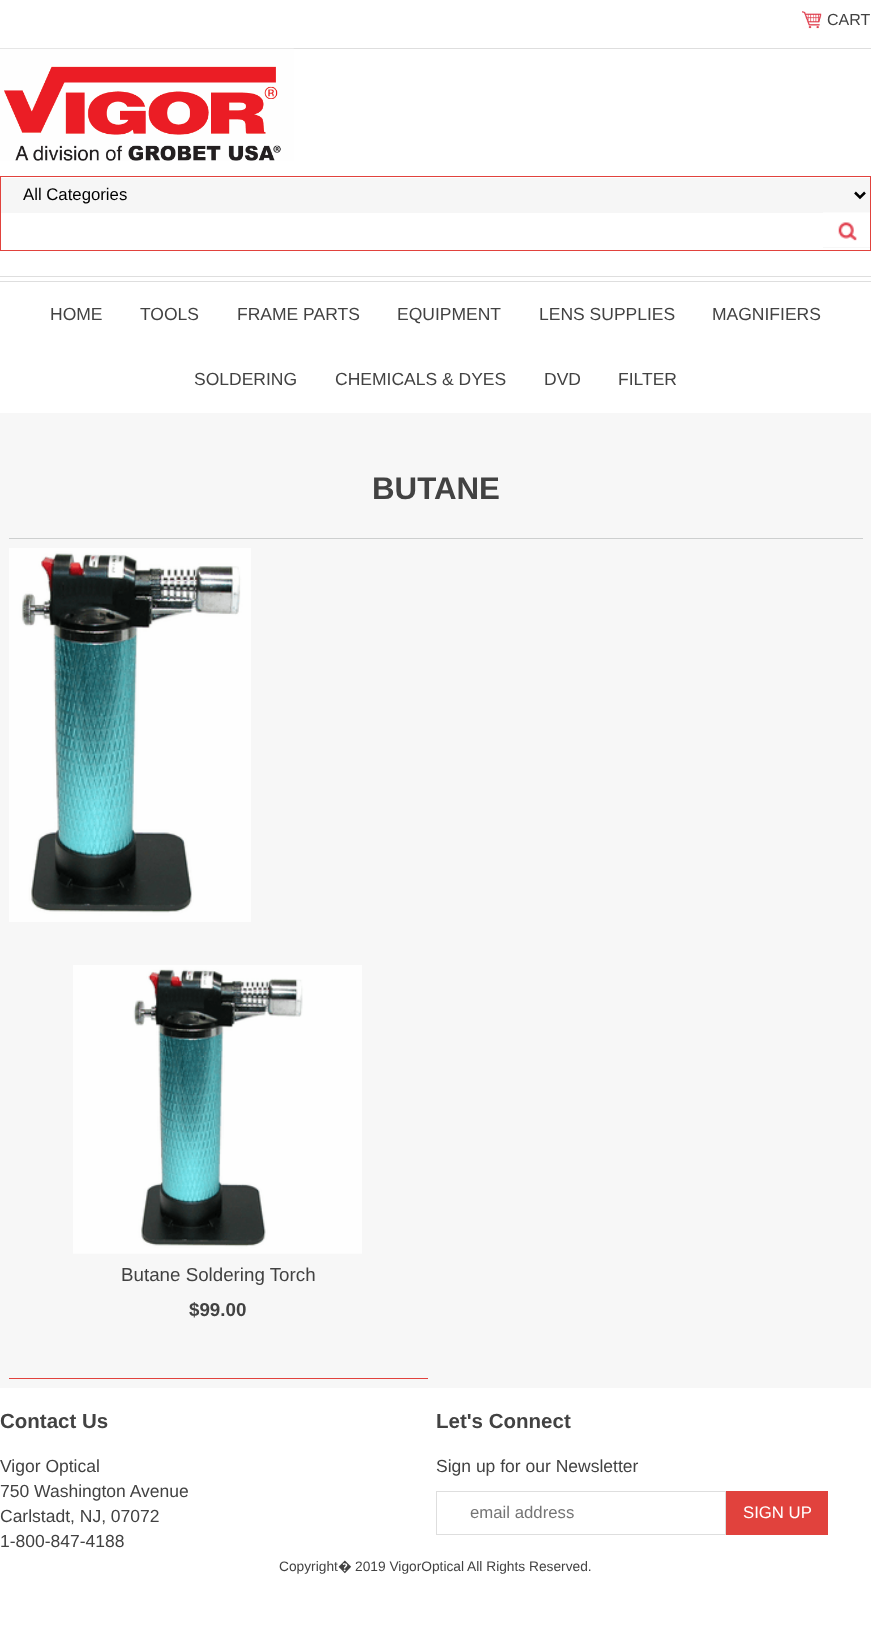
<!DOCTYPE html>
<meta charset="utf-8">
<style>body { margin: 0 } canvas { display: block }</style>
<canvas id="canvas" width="871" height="1632"></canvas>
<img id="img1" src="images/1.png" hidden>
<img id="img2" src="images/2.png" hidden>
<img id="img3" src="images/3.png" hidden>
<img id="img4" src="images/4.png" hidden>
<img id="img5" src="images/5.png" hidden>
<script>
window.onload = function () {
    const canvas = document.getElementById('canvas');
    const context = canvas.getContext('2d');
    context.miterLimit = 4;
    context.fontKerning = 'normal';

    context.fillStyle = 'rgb(255, 255, 255)';
    context.fillRect(0, 0, 871, 1632);
    context.drawImage(document.getElementById('img1'), 802, 11, 20, 18);
    context.fillStyle = 'rgb(222, 222, 222)';
    context.fillRect(0, 48, 871, 1);
    context.fillRect(0, 276, 871, 1);
    context.drawImage(document.getElementById('img2'), 0, 48, 294, 113);
    context.strokeStyle = 'rgb(225, 66, 61)';
    context.strokeRect(0.5, 176.5, 870, 74);
    context.fillStyle = 'rgb(246, 246, 246)';
    context.fillRect(1, 178, 869, 35);
    context.beginPath();
    context.moveTo(855, 192.5);
    context.lineTo(860, 197.5);
    context.lineTo(865, 192.5);
    context.strokeStyle = 'rgb(0, 0, 0)';
    context.lineWidth = 2.5;
    context.stroke();
    context.fillStyle = 'rgb(239, 239, 239)';
    context.fillRect(823, 247, 47, 1);
    context.drawImage(document.getElementById('img3'), 823, 212, 47, 36);
    context.fillStyle = 'rgb(222, 222, 222)';
    context.fillRect(0, 281, 871, 1);
    context.fillStyle = 'rgb(247, 247, 247)';
    context.fillRect(0, 413, 871, 975);
    context.fillStyle = 'rgb(205, 207, 207)';
    context.fillRect(9, 538, 854, 1);
    context.drawImage(document.getElementById('img4'), 9, 548, 242, 374);
    context.fillStyle = 'rgb(225, 66, 61)';
    context.fillRect(9, 1378, 419, 1);
    context.drawImage(document.getElementById('img5'), 73, 965, 289, 289);
    context.strokeStyle = 'rgb(222, 222, 222)';
    context.lineWidth = 1;
    context.strokeRect(436.5, 1491.5, 289, 43);
    context.fillRect(726, 1491, 102, 44);
    context.font = '16px Liberation Sans';
    context.fillStyle = 'rgb(66, 66, 66)';
    context.fillText('CART', 827, 25);
    context.font = '16.75px Liberation Sans';
    context.fillStyle = 'rgb(0, 0, 0)';
    context.fillText('All Categories', 23, 200);
    context.font = '17.5px Liberation Sans';
    context.fillStyle = 'rgb(66, 66, 66)';
    context.fillText('HOME', 50, 320);
    context.fillText('TOOLS', 140, 320);
    context.fillText('FRAME PARTS', 237, 320);
    context.fillText('EQUIPMENT', 397, 320);
    context.fillText('LENS SUPPLIES', 539, 320);
    context.fillText('MAGNIFIERS', 712, 320);
    context.fillText('SOLDERING', 194, 385);
    context.fillText('CHEMICALS & DYES', 335, 385);
    context.fillText('DVD', 544, 385);
    context.fillText('FILTER', 618, 385);
    context.font = 'bold 31.25px Liberation Sans';
    context.fillText('BUTANE', 372, 499);
    context.font = '18.75px Liberation Sans';
    context.fillText('Butane Soldering Torch', 121, 1281);
    context.font = 'bold 18.75px Liberation Sans';
    context.fillText('$99.00', 189, 1316);
    context.font = 'bold 20.5px Liberation Sans';
    context.fillText('Contact Us', 0, 1428);
    context.font = '17.5px Liberation Sans';
    context.fillText('Vigor Optical', 0, 1472);
    context.fillText('750 Washington Avenue', 0, 1497);
    context.fillText('Carlstadt, NJ, 07072', 0, 1522);
    context.fillText('1-800-847-4188', 0, 1547);
    context.font = 'bold 20.5px Liberation Sans';
    context.fillText('Let\'s Connect', 436, 1428);
    context.font = '17.5px Liberation Sans';
    context.fillText('Sign up for our Newsletter', 436, 1472);
    context.font = '16.75px Liberation Sans';
    context.fillStyle = 'rgb(117, 117, 117)';
    context.fillText('email address', 470, 1518);
    context.fillStyle = 'rgb(255, 255, 255)';
    context.fillText('SIGN UP', 743, 1518);
    context.font = '13.75px Liberation Sans';
    context.fillStyle = 'rgb(66, 66, 66)';
    context.fillText('Copyright', 279, 1571);
    context.font = '13.75px Noto Sans';
    context.fillText('�', 338, 1571);
    context.font = '13.75px Liberation Sans';
    context.fillText('2019 VigorOptical All Rights Reserved.', 355, 1571);
};
</script>
